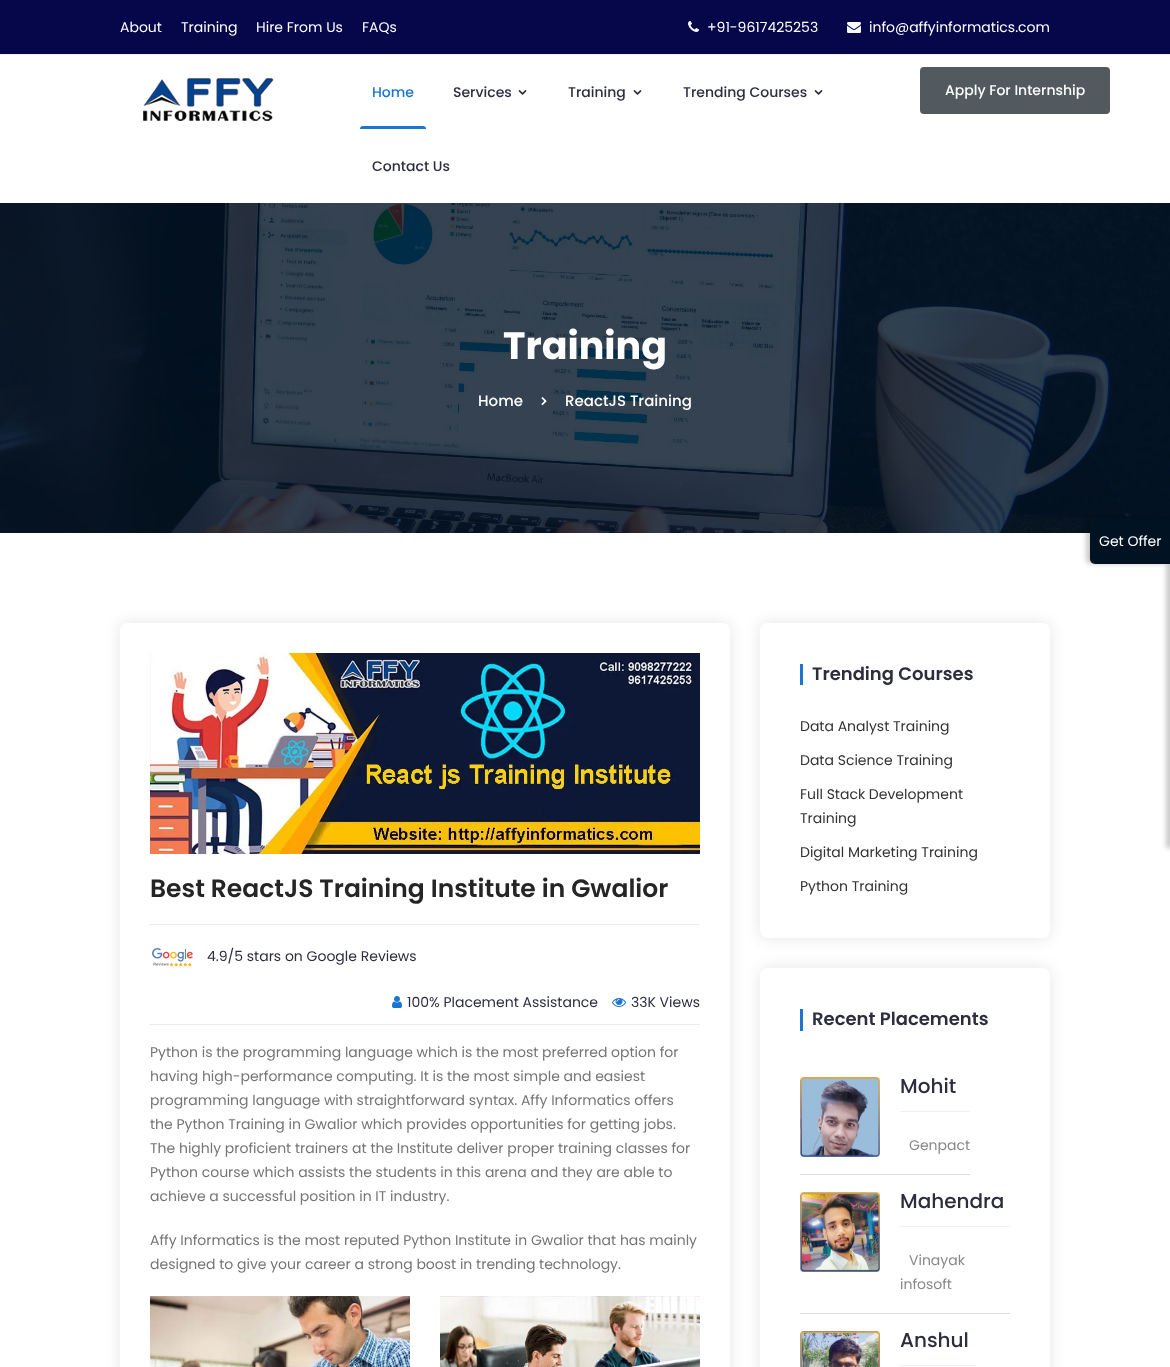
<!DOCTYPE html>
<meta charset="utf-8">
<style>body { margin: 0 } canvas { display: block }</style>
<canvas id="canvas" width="1170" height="1367"></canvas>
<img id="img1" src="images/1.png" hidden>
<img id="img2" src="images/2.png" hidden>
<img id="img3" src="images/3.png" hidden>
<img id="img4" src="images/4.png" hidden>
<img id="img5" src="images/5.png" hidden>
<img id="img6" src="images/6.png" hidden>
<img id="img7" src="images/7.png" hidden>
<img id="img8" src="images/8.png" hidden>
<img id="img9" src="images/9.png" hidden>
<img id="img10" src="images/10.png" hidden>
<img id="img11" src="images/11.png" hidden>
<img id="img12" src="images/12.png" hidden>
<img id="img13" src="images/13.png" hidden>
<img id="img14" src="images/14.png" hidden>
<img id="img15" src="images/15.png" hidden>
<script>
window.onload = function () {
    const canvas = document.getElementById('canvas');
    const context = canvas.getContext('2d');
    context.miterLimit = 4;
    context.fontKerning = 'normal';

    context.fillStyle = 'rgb(255, 255, 255)';
    context.fillRect(0, 0, 1170, 1367);
    context.fillStyle = 'rgb(6, 6, 74)';
    context.fillRect(0, 0, 1170, 54);
    context.fillStyle = 'rgb(238, 238, 238)';
    context.fillRect(0, 54, 1170, 1);
    context.drawImage(document.getElementById('img1'), 688, 21, 11, 11);
    context.drawImage(document.getElementById('img2'), 847, 22, 14, 11);
    context.drawImage(document.getElementById('img3'), 143, 78, 131, 43);
    context.fillStyle = 'rgb(26, 118, 209)';
    context.beginPath();
    context.roundRect(360, 126, 66, 3, [3, 3, 0, 0]);
    context.fill();
    context.drawImage(document.getElementById('img4'), 518, 90, 9, 5);
    context.drawImage(document.getElementById('img4'), 633, 90, 9, 5);
    context.drawImage(document.getElementById('img4'), 814, 90, 9, 5);
    context.fillStyle = 'rgb(82, 89, 95)';
    context.beginPath();
    context.roundRect(920, 67, 190, 47, 4);
    context.fill();
    context.drawImage(document.getElementById('img5'), 0, 203, 1170, 330);
    context.drawImage(document.getElementById('img6'), 541, 397, 6, 9);
    context.fillStyle = 'rgba(0, 0, 0, 0.21)';
    context.filter = 'blur(2.5px)';
    context.beginPath();
    context.rect(1166, 519, 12, 329);
    context.fill();
    context.filter = 'none';
    context.filter = 'blur(2.5px)';
    context.beginPath();
    context.roundRect(1086, 519, 80, 45, 5);
    context.fill();
    context.filter = 'none';
    context.fillStyle = 'rgb(1, 18, 35)';
    context.beginPath();
    context.roundRect(1090, 519, 80, 45, [5, 0, 0, 5]);
    context.fill();
    context.fillStyle = 'rgba(0, 0, 0, 0.1)';
    context.filter = 'blur(7.5px)';
    context.beginPath();
    context.roundRect(120, 623, 610, 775, 8);
    context.fill();
    context.filter = 'none';
    context.fillStyle = 'rgb(255, 255, 255)';
    context.beginPath();
    context.roundRect(120, 623, 610, 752, 8);
    context.fill();
    context.drawImage(document.getElementById('img7'), 150, 653, 550, 201);
    context.fillStyle = 'rgb(235, 235, 235)';
    context.fillRect(150, 924, 550, 1);
    context.fillRect(150, 1024, 550, 1);
    context.drawImage(document.getElementById('img8'), 152, 948, 41, 19);
    context.drawImage(document.getElementById('img9'), 392, 996, 10, 12);
    context.drawImage(document.getElementById('img10'), 612, 998, 14, 9);
    context.drawImage(document.getElementById('img11'), 150, 1296, 260, 71);
    context.drawImage(document.getElementById('img12'), 440, 1296, 260, 71);
    context.fillStyle = 'rgba(0, 0, 0, 0.1)';
    context.filter = 'blur(7.5px)';
    context.beginPath();
    context.roundRect(760, 623, 290, 315, 8);
    context.fill();
    context.filter = 'none';
    context.fillStyle = 'rgb(255, 255, 255)';
    context.beginPath();
    context.roundRect(760, 623, 290, 315, 8);
    context.fill();
    context.fillStyle = 'rgb(26, 118, 209)';
    context.fillRect(800, 664, 3, 21);
    context.fillStyle = 'rgba(0, 0, 0, 0.1)';
    context.filter = 'blur(7.5px)';
    context.beginPath();
    context.roundRect(760, 968, 290, 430, 8);
    context.fill();
    context.filter = 'none';
    context.fillStyle = 'rgb(255, 255, 255)';
    context.beginPath();
    context.roundRect(760, 968, 290, 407, 8);
    context.fill();
    context.fillStyle = 'rgb(26, 118, 209)';
    context.fillRect(800, 1009, 3, 22);
    context.fillStyle = 'rgb(221, 221, 221)';
    context.fillRect(800, 1174, 170, 1);
    context.drawImage(document.getElementById('img13'), 800, 1077, 80, 80);
    context.fillStyle = 'rgb(242, 242, 242)';
    context.fillRect(900, 1111, 70, 1);
    context.fillStyle = 'rgb(221, 221, 221)';
    context.fillRect(800, 1313, 210, 1);
    context.drawImage(document.getElementById('img14'), 800, 1192, 80, 80);
    context.fillStyle = 'rgb(242, 242, 242)';
    context.fillRect(900, 1226, 110, 1);
    context.drawImage(document.getElementById('img15'), 800, 1331, 80, 36);
    context.fillRect(900, 1365, 76, 1);
    context.font = '14px Poppins';
    context.fillStyle = 'rgb(254, 254, 255)';
    context.fillText('About', 120, 32);
    context.fillText('Training', 181, 32);
    context.fillText('Hire From Us', 256, 32);
    context.fillText('FAQs', 362, 32);
    context.fillText('+91-9617425253', 707, 32);
    context.fillText('info@affyinformatics.com', 869, 32);
    context.font = '500 14px Poppins';
    context.fillStyle = 'rgb(26, 118, 209)';
    context.fillText('Home', 372, 97);
    context.fillStyle = 'rgb(44, 45, 63)';
    context.fillText('Services', 453, 97);
    context.fillText('Training', 568, 97);
    context.fillText('Trending Courses', 683, 97);
    context.fillText('Contact Us', 372, 171);
    context.fillStyle = 'rgb(254, 254, 255)';
    context.fillText('Apply For Internship', 945, 95);
    context.font = 'bold 38px Poppins';
    context.fillText('Training', 503, 359);
    context.font = '500 15px Poppins';
    context.fillText('Home', 478, 406);
    context.fillText('ReactJS Training', 565, 406);
    context.font = '14px Poppins';
    context.fillText('Get Offer', 1099, 546);
    context.font = '600 25px Poppins';
    context.fillStyle = 'rgb(37, 37, 37)';
    context.fillText('Best ReactJS Training Institute in Gwalior', 150, 897);
    context.font = '14px Poppins';
    context.fillStyle = 'rgb(44, 45, 63)';
    context.fillText('4.9/5 stars on Google Reviews', 207, 961);
    context.fillText('100% Placement Assistance', 407, 1007);
    context.fillText('33K Views', 631, 1007);
    context.fillStyle = 'rgb(117, 117, 117)';
    context.fillText('Python is the programming language which is the most preferred option for', 150, 1057);
    context.fillText('having high-performance computing. It is the most simple and easiest', 150, 1081);
    context.fillText('programming language with straightforward syntax. Affy Informatics offers', 150, 1105);
    context.fillText('the Python Training in Gwalior which provides opportunities for getting jobs.', 150, 1129);
    context.fillText('The highly proficient trainers at the Institute deliver proper training classes for', 150, 1153);
    context.fillText('Python course which assists the students in this arena and they are able to', 150, 1177);
    context.fillText('achieve a successful position in IT industry.', 150, 1201);
    context.fillText('Affy Informatics is the most reputed Python Institute in Gwalior that has mainly', 150, 1245);
    context.fillText('designed to give your career a strong boost in trending technology.', 150, 1269);
    context.font = '600 18px Poppins';
    context.fillStyle = 'rgb(44, 45, 63)';
    context.fillText('Trending Courses', 812, 680);
    context.font = '14px Poppins';
    context.fillStyle = 'rgb(51, 51, 51)';
    context.fillText('Data Analyst Training', 800, 731);
    context.fillText('Data Science Training', 800, 765);
    context.fillText('Full Stack Development', 800, 799);
    context.fillText('Training', 800, 823);
    context.fillText('Digital Marketing Training', 800, 857);
    context.fillText('Python Training', 800, 891);
    context.font = '600 18px Poppins';
    context.fillStyle = 'rgb(44, 45, 63)';
    context.fillText('Recent Placements', 812, 1025);
    context.font = '500 20px Poppins';
    context.fillText('Mohit', 900, 1093);
    context.font = '14px Poppins';
    context.fillStyle = 'rgb(136, 136, 136)';
    context.fillText('Genpact', 909, 1150);
    context.font = '500 20px Poppins';
    context.fillStyle = 'rgb(44, 45, 63)';
    context.fillText('Mahendra', 900, 1208);
    context.font = '14px Poppins';
    context.fillStyle = 'rgb(136, 136, 136)';
    context.fillText('Vinayak', 909, 1265);
    context.fillText('infosoft', 900, 1289);
    context.font = '500 20px Poppins';
    context.fillStyle = 'rgb(44, 45, 63)';
    context.fillText('Anshul', 900, 1347);
};
</script>
